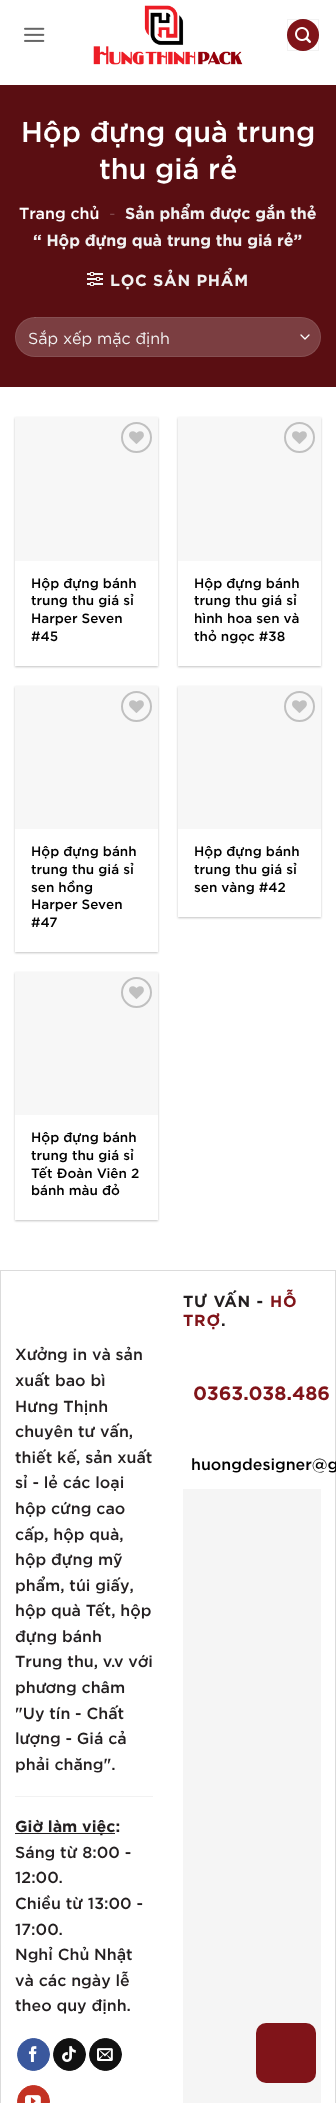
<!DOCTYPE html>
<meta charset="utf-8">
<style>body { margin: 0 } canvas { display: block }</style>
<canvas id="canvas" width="336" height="2103"></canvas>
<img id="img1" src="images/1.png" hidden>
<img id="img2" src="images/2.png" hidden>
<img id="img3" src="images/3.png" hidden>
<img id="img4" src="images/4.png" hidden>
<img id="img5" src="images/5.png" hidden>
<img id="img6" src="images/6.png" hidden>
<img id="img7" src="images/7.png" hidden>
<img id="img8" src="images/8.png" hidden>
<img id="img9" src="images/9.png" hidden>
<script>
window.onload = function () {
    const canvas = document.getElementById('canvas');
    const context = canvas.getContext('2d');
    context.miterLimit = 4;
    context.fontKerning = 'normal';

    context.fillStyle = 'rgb(255, 255, 255)';
    context.fillRect(0, 0, 336, 2103);
    context.drawImage(document.getElementById('img1'), 24, 27, 21, 15);
    context.drawImage(document.getElementById('img2'), 93, 5, 150, 60);
    context.fillStyle = 'rgb(128, 20, 25)';
    context.beginPath();
    context.arc(303, 35, 16, 0, 2 * Math.PI);
    context.fill();
    context.strokeStyle = 'rgba(0, 0, 0, 0.05)';
    context.strokeRect(287.5, 19.5, 31, 31);
    context.drawImage(document.getElementById('img3'), 295, 27, 16, 16);
    context.fillStyle = 'rgb(90, 14, 18)';
    context.fillRect(0, 85, 336, 302);
    context.drawImage(document.getElementById('img4'), 87, 272, 16, 14);
    context.fillStyle = 'rgb(123, 62, 65)';
    context.beginPath();
    context.roundRect(15, 317, 306, 40, 20);
    context.fill();
    context.beginPath();
    context.moveTo(301, 335);
    context.lineTo(305, 339);
    context.lineTo(309, 335);
    context.strokeStyle = 'rgb(255, 255, 255)';
    context.lineWidth = 1.3;
    context.lineCap = 'round';
    context.lineJoin = 'round';
    context.stroke();
    context.beginPath();
    context.roundRect(15.5, 317.5, 305, 39, 19.5);
    context.strokeStyle = 'rgba(255, 255, 255, 0.09)';
    context.lineWidth = 1;
    context.lineJoin = 'miter';
    context.stroke();
    context.save();
    context.beginPath();
    context.moveTo(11, 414);
    context.lineTo(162, 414);
    context.lineTo(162, 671);
    context.lineTo(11, 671);
    context.closePath();
    context.moveTo(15, 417);
    context.lineTo(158, 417);
    context.lineTo(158, 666);
    context.lineTo(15, 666);
    context.closePath();
    context.clip('evenodd');
    context.fillStyle = 'rgba(0, 0, 0, 0.24)';
    context.filter = 'blur(1px)';
    context.beginPath();
    context.rect(15, 418, 143, 249);
    context.fill();
    context.filter = 'none';
    context.restore();
    context.fillStyle = 'rgb(247, 247, 247)';
    context.fillRect(15, 417, 143, 144);
    context.beginPath();
    context.arc(136.5, 437.5, 14.5, 0, 2 * Math.PI);
    context.strokeStyle = 'rgb(192, 192, 192)';
    context.lineWidth = 2;
    context.stroke();
    context.drawImage(document.getElementById('img5'), 129, 431, 15, 13);
    context.save();
    context.beginPath();
    context.moveTo(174, 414);
    context.lineTo(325, 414);
    context.lineTo(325, 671);
    context.lineTo(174, 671);
    context.closePath();
    context.moveTo(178, 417);
    context.lineTo(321, 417);
    context.lineTo(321, 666);
    context.lineTo(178, 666);
    context.closePath();
    context.clip('evenodd');
    context.fillStyle = 'rgba(0, 0, 0, 0.24)';
    context.filter = 'blur(1px)';
    context.beginPath();
    context.rect(178, 418, 143, 249);
    context.fill();
    context.filter = 'none';
    context.restore();
    context.fillRect(178, 417, 143, 144);
    context.beginPath();
    context.arc(299.5, 437.5, 14.5, 0, 2 * Math.PI);
    context.stroke();
    context.drawImage(document.getElementById('img5'), 292, 431, 15, 13);
    context.save();
    context.beginPath();
    context.moveTo(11, 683);
    context.lineTo(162, 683);
    context.lineTo(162, 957);
    context.lineTo(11, 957);
    context.closePath();
    context.moveTo(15, 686);
    context.lineTo(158, 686);
    context.lineTo(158, 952);
    context.lineTo(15, 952);
    context.closePath();
    context.clip('evenodd');
    context.fillStyle = 'rgba(0, 0, 0, 0.24)';
    context.filter = 'blur(1px)';
    context.beginPath();
    context.rect(15, 687, 143, 266);
    context.fill();
    context.filter = 'none';
    context.restore();
    context.fillRect(15, 686, 143, 143);
    context.beginPath();
    context.arc(136.5, 706.5, 14.5, 0, 2 * Math.PI);
    context.stroke();
    context.drawImage(document.getElementById('img5'), 129, 700, 15, 13);
    context.save();
    context.beginPath();
    context.moveTo(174, 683);
    context.lineTo(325, 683);
    context.lineTo(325, 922);
    context.lineTo(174, 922);
    context.closePath();
    context.moveTo(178, 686);
    context.lineTo(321, 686);
    context.lineTo(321, 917);
    context.lineTo(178, 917);
    context.closePath();
    context.clip('evenodd');
    context.fillStyle = 'rgba(0, 0, 0, 0.24)';
    context.filter = 'blur(1px)';
    context.beginPath();
    context.rect(178, 687, 143, 231);
    context.fill();
    context.filter = 'none';
    context.restore();
    context.fillRect(178, 686, 143, 143);
    context.beginPath();
    context.arc(299.5, 706.5, 14.5, 0, 2 * Math.PI);
    context.stroke();
    context.drawImage(document.getElementById('img5'), 292, 700, 15, 13);
    context.save();
    context.beginPath();
    context.moveTo(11, 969);
    context.lineTo(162, 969);
    context.lineTo(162, 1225);
    context.lineTo(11, 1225);
    context.closePath();
    context.moveTo(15, 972);
    context.lineTo(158, 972);
    context.lineTo(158, 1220);
    context.lineTo(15, 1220);
    context.closePath();
    context.clip('evenodd');
    context.fillStyle = 'rgba(0, 0, 0, 0.24)';
    context.filter = 'blur(1px)';
    context.beginPath();
    context.rect(15, 973, 143, 248);
    context.fill();
    context.filter = 'none';
    context.restore();
    context.fillRect(15, 972, 143, 143);
    context.beginPath();
    context.arc(136.5, 992.5, 14.5, 0, 2 * Math.PI);
    context.stroke();
    context.drawImage(document.getElementById('img5'), 129, 986, 15, 13);
    context.strokeStyle = 'rgb(219, 219, 219)';
    context.lineWidth = 1;
    context.strokeRect(0.5, 1270.5, 335, 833);
    context.fillStyle = 'rgb(242, 242, 242)';
    context.fillRect(15, 1796, 138, 1);
    context.fillStyle = 'rgb(35, 31, 32)';
    context.fillRect(15, 1833, 100, 1);
    context.fillStyle = 'rgb(58, 88, 157)';
    context.beginPath();
    context.arc(33.5, 2054.5, 16, 0, 2 * Math.PI);
    context.fill();
    context.strokeStyle = 'rgb(58, 88, 157)';
    context.stroke();
    context.drawImage(document.getElementById('img6'), 28, 2046, 9, 16);
    context.fillStyle = 'rgb(17, 17, 17)';
    context.beginPath();
    context.arc(69.5, 2054.5, 16, 0, 2 * Math.PI);
    context.fill();
    context.strokeStyle = 'rgb(17, 17, 17)';
    context.stroke();
    context.drawImage(document.getElementById('img7'), 62, 2046, 14, 16);
    context.beginPath();
    context.arc(105.5, 2054.5, 16, 0, 2 * Math.PI);
    context.fill();
    context.stroke();
    context.drawImage(document.getElementById('img8'), 97, 2048, 16, 13);
    context.fillStyle = 'rgb(195, 50, 35)';
    context.beginPath();
    context.arc(33.5, 2101.5, 16, 0, 2 * Math.PI);
    context.fill();
    context.strokeStyle = 'rgb(195, 50, 35)';
    context.stroke();
    context.drawImage(document.getElementById('img9'), 25, 2095, 16, 8);
    context.fillStyle = 'rgb(245, 245, 245)';
    context.fillRect(183, 1489, 138, 614);
    context.fillStyle = 'rgb(128, 20, 25)';
    context.beginPath();
    context.roundRect(256, 2023, 60, 60, 10);
    context.fill();
    context.font = '28.75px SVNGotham';
    context.fillStyle = 'rgb(255, 255, 255)';
    context.fillText('Hộp đựng quà trung', 21, 142);
    context.fillText('thu giá rẻ', 99, 179);
    context.font = '16px SVNGotham';
    context.fillText('Trang chủ', 19, 219);
    context.font = '300 16px SVNGotham';
    context.fillStyle = 'rgb(143, 93, 96)';
    context.fillText('-', 109, 219);
    context.font = 'bold 16px SVNGotham';
    context.fillStyle = 'rgb(241, 241, 241)';
    context.fillText('Sản phẩm được gắn thẻ', 125, 219);
    context.fillText('“ Hộp đựng quà trung thu giá rẻ”', 33, 246);
    context.letterSpacing = '0.75px';
    context.fillText('LỌC SẢN PHẨM', 110, 286);
    context.letterSpacing = '0px';
    context.font = '16px "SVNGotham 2"';
    context.fillText('Sắp xếp mặc định', 28, 344);
    context.font = '13.5px SVNGotham';
    context.fillStyle = 'rgb(0, 0, 0)';
    context.fillText('Hộp đựng bánh', 31, 588);
    context.fillText('trung thu giá sỉ', 31, 605);
    context.fillText('Harper Seven', 31, 623);
    context.fillText('#45', 31, 641);
    context.fillText('Hộp đựng bánh', 194, 588);
    context.fillText('trung thu giá sỉ', 194, 605);
    context.fillText('hình hoa sen và', 194, 623);
    context.fillText('thỏ ngọc #38', 194, 641);
    context.fillText('Hộp đựng bánh', 31, 856);
    context.fillText('trung thu giá sỉ', 31, 874);
    context.fillText('sen hồng', 31, 892);
    context.fillText('Harper Seven', 31, 909);
    context.fillText('#47', 31, 927);
    context.fillText('Hộp đựng bánh', 194, 856);
    context.fillText('trung thu giá sỉ', 194, 874);
    context.fillText('sen vàng #42', 194, 892);
    context.fillText('Hộp đựng bánh', 31, 1142);
    context.fillText('trung thu giá sỉ', 31, 1160);
    context.fillText('Tết Đoàn Viên 2', 31, 1178);
    context.fillText('bánh màu đỏ', 31, 1195);
    context.font = '16px SVNGotham';
    context.fillStyle = 'rgb(35, 31, 32)';
    context.fillText('Xưởng in và sản', 15, 1360);
    context.fillText('xuất bao bì', 15, 1386);
    context.fillText('Hưng Thịnh', 15, 1412);
    context.fillText('chuyên tư vấn,', 15, 1437);
    context.fillText('thiết kế, sản xuất', 15, 1463);
    context.fillText('sỉ - lẻ các loại', 15, 1488);
    context.fillText('hộp cứng cao', 15, 1514);
    context.fillText('cấp, hộp quà,', 15, 1540);
    context.fillText('hộp đựng mỹ', 15, 1565);
    context.fillText('phẩm, túi giấy,', 15, 1591);
    context.fillText('hộp quà Tết, hộp', 15, 1616);
    context.fillText('đựng bánh', 15, 1642);
    context.fillText('Trung thu, v.v với', 15, 1667);
    context.fillText('phương châm', 15, 1693);
    context.fillText('"Uy tín - Chất', 15, 1719);
    context.fillText('lượng - Giá cả', 15, 1744);
    context.fillText('phải chăng".', 15, 1770);
    context.font = 'bold 16px SVNGotham';
    context.fillText('Giờ làm việc:', 15, 1832);
    context.font = '16px SVNGotham';
    context.fillText('Sáng từ 8:00 -', 15, 1858);
    context.fillText('12:00.', 15, 1883);
    context.fillText('Chiều từ 13:00 -', 15, 1909);
    context.fillText('17:00.', 15, 1935);
    context.fillText('Nghỉ Chủ Nhật', 15, 1960);
    context.fillText('và các ngày lễ', 15, 1986);
    context.fillText('theo quy định.', 15, 2011);
    context.letterSpacing = '0.75px';
    context.font = 'bold 16px SVNGotham';
    context.fillText('TƯ VẤN -', 183, 1307);
    context.fillStyle = 'rgb(128, 20, 25)';
    context.fillText('HỖ', 270, 1307);
    context.fillText('TRỢ', 183, 1326);
    context.fillStyle = 'rgb(35, 31, 32)';
    context.fillText('.', 221, 1326);
    context.letterSpacing = '0px';
    context.font = 'bold 19.25px SVNGotham';
    context.fillStyle = 'rgb(128, 20, 25)';
    context.fillText('0363.038.486', 193, 1400);
    context.font = '16px SVNGotham';
    context.fillStyle = 'rgb(0, 0, 0)';
    context.fillText('huongdesigner@g', 191, 1470);
};
</script>
